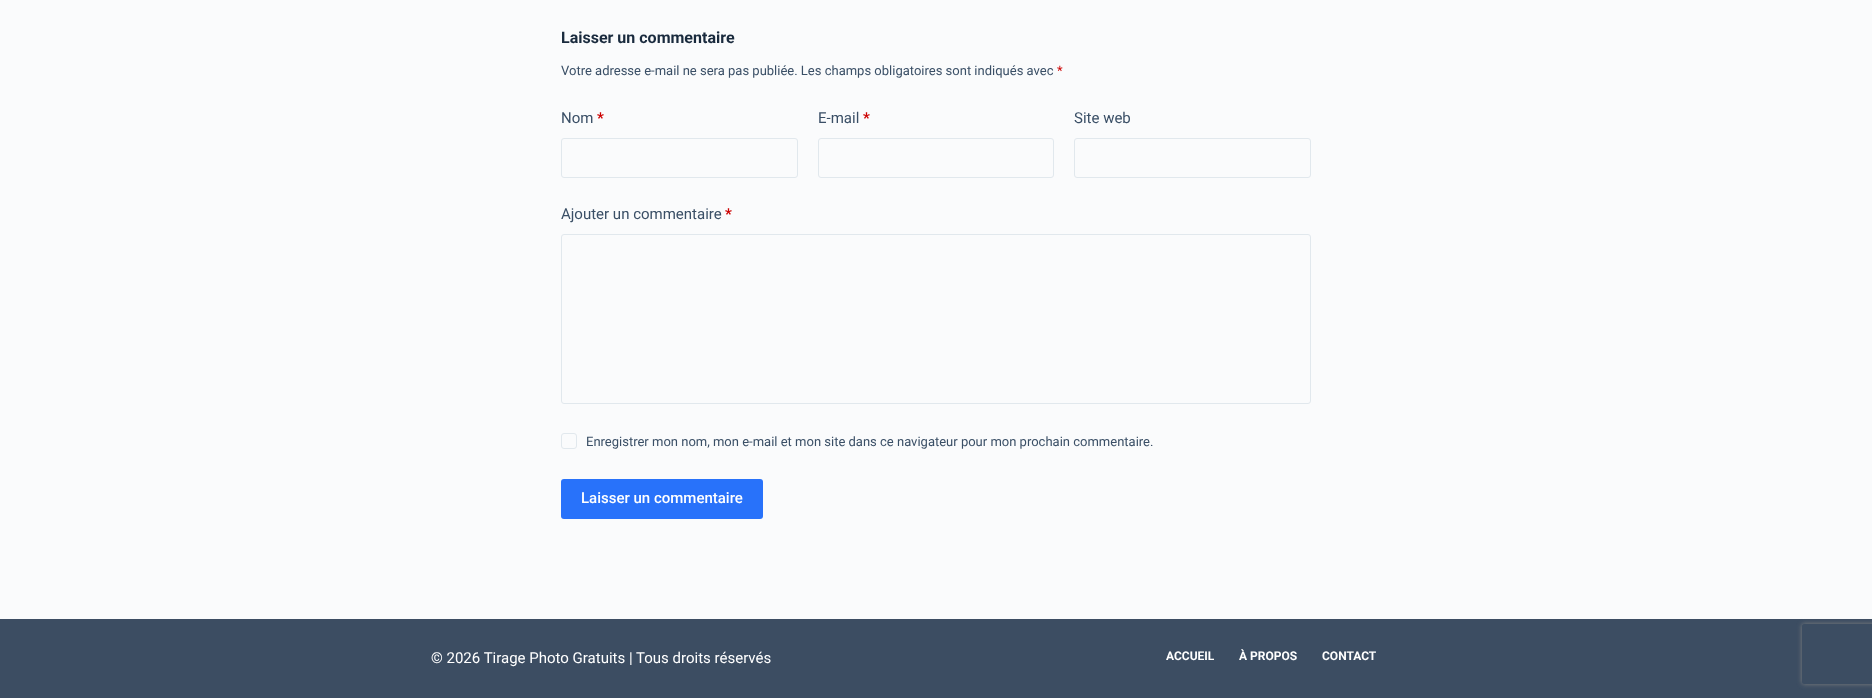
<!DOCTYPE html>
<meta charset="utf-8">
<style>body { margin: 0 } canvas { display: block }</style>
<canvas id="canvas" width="1872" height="698"></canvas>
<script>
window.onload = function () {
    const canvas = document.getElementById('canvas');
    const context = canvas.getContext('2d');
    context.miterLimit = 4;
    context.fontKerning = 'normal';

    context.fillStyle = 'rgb(250, 251, 252)';
    context.fillRect(0, 0, 1872, 698);
    context.beginPath();
    context.roundRect(561.5, 138.5, 236, 39, 2.5);
    context.strokeStyle = 'rgb(225, 232, 237)';
    context.stroke();
    context.beginPath();
    context.roundRect(818.5, 138.5, 235, 39, 2.5);
    context.stroke();
    context.beginPath();
    context.roundRect(1074.5, 138.5, 236, 39, 2.5);
    context.stroke();
    context.beginPath();
    context.roundRect(561.5, 234.5, 749, 169, 2.5);
    context.stroke();
    context.beginPath();
    context.roundRect(561.5, 433.5, 15, 15, 2.5);
    context.stroke();
    context.fillStyle = 'rgb(40, 114, 250)';
    context.beginPath();
    context.roundRect(561, 479, 202, 40, 3);
    context.fill();
    context.fillStyle = 'rgb(60, 77, 98)';
    context.fillRect(0, 619, 1872, 79);
    context.save();
    context.beginPath();
    context.moveTo(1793, 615);
    context.lineTo(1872, 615);
    context.lineTo(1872, 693);
    context.lineTo(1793, 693);
    context.closePath();
    context.moveTo(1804, 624);
    context.lineTo(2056, 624);
    context.bezierCurveTo(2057, 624, 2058, 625, 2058, 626);
    context.lineTo(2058, 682);
    context.bezierCurveTo(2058, 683, 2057, 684, 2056, 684);
    context.lineTo(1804, 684);
    context.bezierCurveTo(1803, 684, 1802, 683, 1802, 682);
    context.lineTo(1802, 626);
    context.bezierCurveTo(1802, 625, 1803, 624, 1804, 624);
    context.closePath();
    context.clip('evenodd');
    context.fillStyle = 'rgb(128, 128, 128)';
    context.filter = 'blur(2.5px)';
    context.beginPath();
    context.roundRect(1802, 624, 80, 60, 2);
    context.fill();
    context.filter = 'none';
    context.restore();
    context.font = 'bold 16px Roboto';
    context.fillStyle = 'rgb(25, 42, 61)';
    context.fillText('Laisser un commentaire', 561, 43);
    context.font = '13px Roboto';
    context.fillStyle = 'rgb(58, 79, 102)';
    context.fillText('Votre adresse e-mail ne sera pas publiée. Les champs obligatoires sont indiqués avec', 561, 75);
    context.fillStyle = 'rgb(204, 0, 0)';
    context.fillText('*', 1057, 75);
    context.font = '15px Roboto';
    context.fillStyle = 'rgb(58, 79, 102)';
    context.fillText('Nom', 561, 123);
    context.font = 'bold 15px Roboto';
    context.fillStyle = 'rgb(204, 0, 0)';
    context.fillText('*', 597, 123);
    context.font = '15px Roboto';
    context.fillStyle = 'rgb(58, 79, 102)';
    context.fillText('E-mail', 818, 123);
    context.font = 'bold 15px Roboto';
    context.fillStyle = 'rgb(204, 0, 0)';
    context.fillText('*', 863, 123);
    context.font = '15px Roboto';
    context.fillStyle = 'rgb(58, 79, 102)';
    context.fillText('Site web', 1074, 123);
    context.fillText('Ajouter un commentaire', 561, 219);
    context.font = 'bold 15px Roboto';
    context.fillStyle = 'rgb(204, 0, 0)';
    context.fillText('*', 725, 219);
    context.font = '13px Roboto';
    context.fillStyle = 'rgb(58, 79, 102)';
    context.fillText('Enregistrer mon nom, mon e-mail et mon site dans ce navigateur pour mon prochain commentaire.', 586, 446);
    context.font = '500 15px Roboto';
    context.fillStyle = 'rgb(255, 255, 255)';
    context.fillText('Laisser un commentaire', 581, 503);
    context.font = '15px Roboto';
    context.fillText('© 2026 Tirage Photo Gratuits | Tous droits réservés', 431, 663);
    context.font = 'bold 12px Roboto';
    context.fillText('ACCUEIL', 1166, 660);
    context.fillText('À PROPOS', 1239, 660);
    context.fillText('CONTACT', 1322, 660);
};
</script>
